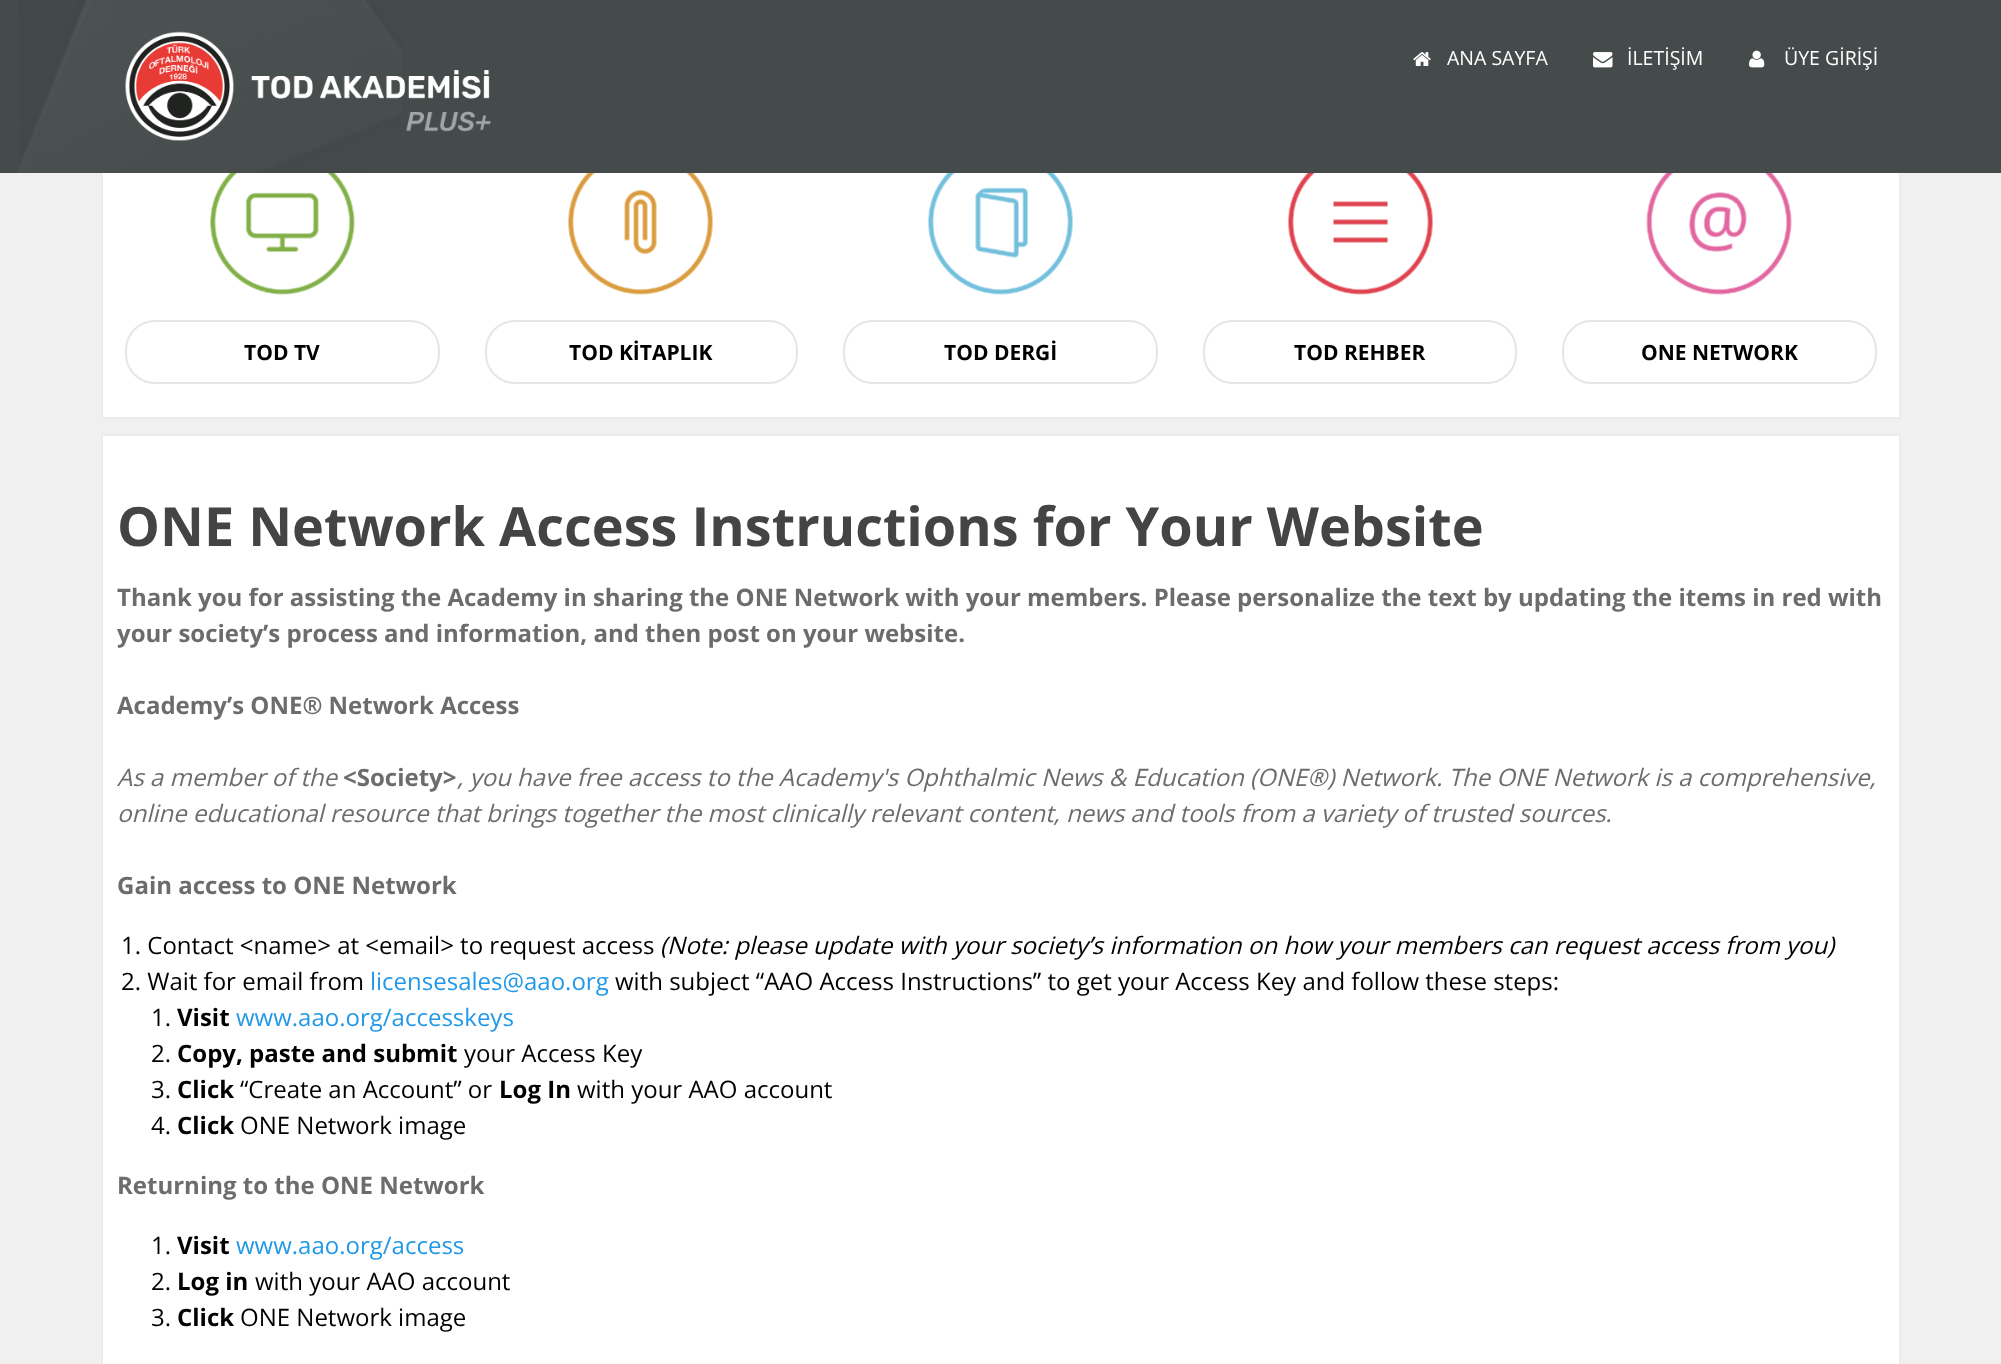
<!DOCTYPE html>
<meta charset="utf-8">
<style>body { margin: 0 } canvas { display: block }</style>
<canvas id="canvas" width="2001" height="1364"></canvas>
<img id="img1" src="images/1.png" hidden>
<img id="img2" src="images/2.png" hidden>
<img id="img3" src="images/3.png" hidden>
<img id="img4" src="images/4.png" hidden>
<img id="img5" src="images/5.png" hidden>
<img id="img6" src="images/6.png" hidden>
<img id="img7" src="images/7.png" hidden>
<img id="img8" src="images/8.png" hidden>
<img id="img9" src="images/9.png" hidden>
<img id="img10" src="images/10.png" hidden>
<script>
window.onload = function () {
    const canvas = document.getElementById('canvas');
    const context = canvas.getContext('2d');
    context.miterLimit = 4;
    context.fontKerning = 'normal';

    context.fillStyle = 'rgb(240, 240, 240)';
    context.fillRect(0, 0, 2001, 1364);
    context.fillStyle = 'rgb(255, 255, 255)';
    context.fillRect(103, 173, 1796, 244);
    context.strokeStyle = 'rgb(236, 236, 236)';
    context.lineWidth = 2;
    context.strokeRect(102, 126, 1798, 292);
    context.fillStyle = 'rgb(69, 75, 75)';
    context.fillRect(0, 0, 2001, 173);
    context.drawImage(document.getElementById('img1'), 18, 0, 384, 173);
    context.drawImage(document.getElementById('img2'), 125, 31, 366, 110);
    context.drawImage(document.getElementById('img3'), 1413, 52, 18, 14);
    context.drawImage(document.getElementById('img4'), 1593, 52, 20, 16);
    context.drawImage(document.getElementById('img5'), 1749, 50, 16, 18);
    context.drawImage(document.getElementById('img6'), 210, 173, 145, 122);
    context.beginPath();
    context.roundRect(126, 321, 313, 62, 29);
    context.strokeStyle = 'rgb(230, 230, 230)';
    context.stroke();
    context.drawImage(document.getElementById('img7'), 568, 173, 145, 122);
    context.beginPath();
    context.roundRect(486, 321, 311, 62, 29);
    context.stroke();
    context.drawImage(document.getElementById('img8'), 928, 173, 145, 122);
    context.beginPath();
    context.roundRect(844, 321, 313, 62, 29);
    context.stroke();
    context.drawImage(document.getElementById('img9'), 1288, 173, 145, 122);
    context.beginPath();
    context.roundRect(1204, 321, 312, 62, 29);
    context.stroke();
    context.drawImage(document.getElementById('img10'), 1646, 173, 146, 122);
    context.beginPath();
    context.roundRect(1563, 321, 313, 62, 29);
    context.stroke();
    context.fillStyle = 'rgb(255, 255, 255)';
    context.beginPath();
    context.rect(102, 435, 1798, 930);
    context.fill();
    context.strokeStyle = 'rgb(236, 236, 236)';
    context.stroke();
    context.font = '19.5px Open Sans';
    context.fillText('ANA SAYFA', 1447, 65);
    context.fillText('İLETİŞİM', 1627, 65);
    context.fillText('ÜYE GİRİŞİ', 1784, 65);
    context.font = 'bold 21px Open Sans';
    context.fillStyle = 'rgb(0, 0, 0)';
    context.fillText('TOD TV', 244, 360);
    context.fillText('TOD KİTAPLIK', 569, 360);
    context.fillText('TOD DERGİ', 944, 360);
    context.fillText('TOD REHBER', 1294, 360);
    context.fillText('ONE NETWORK', 1641, 360);
    context.font = 'bold 54px Open Sans';
    context.fillStyle = 'rgb(68, 68, 68)';
    context.fillText('ONE Network Access Instructions for Your Website', 117, 546);
    context.font = 'bold 24px Open Sans';
    context.fillStyle = 'rgb(108, 108, 108)';
    context.fillText('Thank you for assisting the Academy in sharing the ONE Network with your members. Please personalize the text by updating the items in red with', 117, 606);
    context.fillText('your society’s process and information, and then post on your website.', 117, 642);
    context.fillText('Academy’s ONE® Network Access', 117, 714);
    context.font = 'italic 24px Open Sans';
    context.fillText('As a member of the', 117, 786);
    context.font = 'bold 24px Open Sans';
    context.fillText('<Society>', 343, 786);
    context.font = 'italic 24px Open Sans';
    context.fillText(', you have free access to the Academy\'s Ophthalmic News & Education (ONE®) Network. The ONE Network is a comprehensive,', 457, 786);
    context.fillText('online educational resource that brings together the most clinically relevant content, news and tools from a variety of trusted sources.', 117, 822);
    context.font = 'bold 24px Open Sans';
    context.fillText('Gain access to ONE Network', 117, 894);
    context.font = '24px Open Sans';
    context.fillStyle = 'rgb(0, 0, 0)';
    context.fillText('1. Contact <name> at <email> to request access', 121, 954);
    context.font = 'italic 24px Open Sans';
    context.fillText('(Note: please update with your society’s information on how your members can request access from you)', 660, 954);
    context.font = '24px Open Sans';
    context.fillText('2. Wait for email from', 121, 990);
    context.fillStyle = 'rgb(33, 153, 232)';
    context.fillText('licensesales@aao.org', 370, 990);
    context.fillStyle = 'rgb(0, 0, 0)';
    context.fillText('with subject “AAO Access Instructions” to get your Access Key and follow these steps:', 615, 990);
    context.fillText('1.', 151, 1026);
    context.font = 'bold 24px Open Sans';
    context.fillText('Visit', 177, 1026);
    context.font = '24px Open Sans';
    context.fillStyle = 'rgb(33, 153, 232)';
    context.fillText('www.aao.org/accesskeys', 236, 1026);
    context.fillStyle = 'rgb(0, 0, 0)';
    context.fillText('2.', 151, 1062);
    context.font = 'bold 24px Open Sans';
    context.fillText('Copy, paste and submit', 177, 1062);
    context.font = '24px Open Sans';
    context.fillText('your Access Key', 464, 1062);
    context.fillText('3.', 151, 1098);
    context.font = 'bold 24px Open Sans';
    context.fillText('Click', 177, 1098);
    context.font = '24px Open Sans';
    context.fillText('“Create an Account” or', 240, 1098);
    context.font = 'bold 24px Open Sans';
    context.fillText('Log In', 499, 1098);
    context.font = '24px Open Sans';
    context.fillText('with your AAO account', 577, 1098);
    context.fillText('4.', 151, 1134);
    context.font = 'bold 24px Open Sans';
    context.fillText('Click', 177, 1134);
    context.font = '24px Open Sans';
    context.fillText('ONE Network image', 240, 1134);
    context.font = 'bold 24px Open Sans';
    context.fillStyle = 'rgb(108, 108, 108)';
    context.fillText('Returning to the ONE Network', 117, 1194);
    context.font = '24px Open Sans';
    context.fillStyle = 'rgb(0, 0, 0)';
    context.fillText('1.', 151, 1254);
    context.font = 'bold 24px Open Sans';
    context.fillText('Visit', 177, 1254);
    context.font = '24px Open Sans';
    context.fillStyle = 'rgb(33, 153, 232)';
    context.fillText('www.aao.org/access', 236, 1254);
    context.fillStyle = 'rgb(0, 0, 0)';
    context.fillText('2.', 151, 1290);
    context.font = 'bold 24px Open Sans';
    context.fillText('Log in', 177, 1290);
    context.font = '24px Open Sans';
    context.fillText('with your AAO account', 255, 1290);
    context.fillText('3.', 151, 1326);
    context.font = 'bold 24px Open Sans';
    context.fillText('Click', 177, 1326);
    context.font = '24px Open Sans';
    context.fillText('ONE Network image', 240, 1326);
};
</script>
